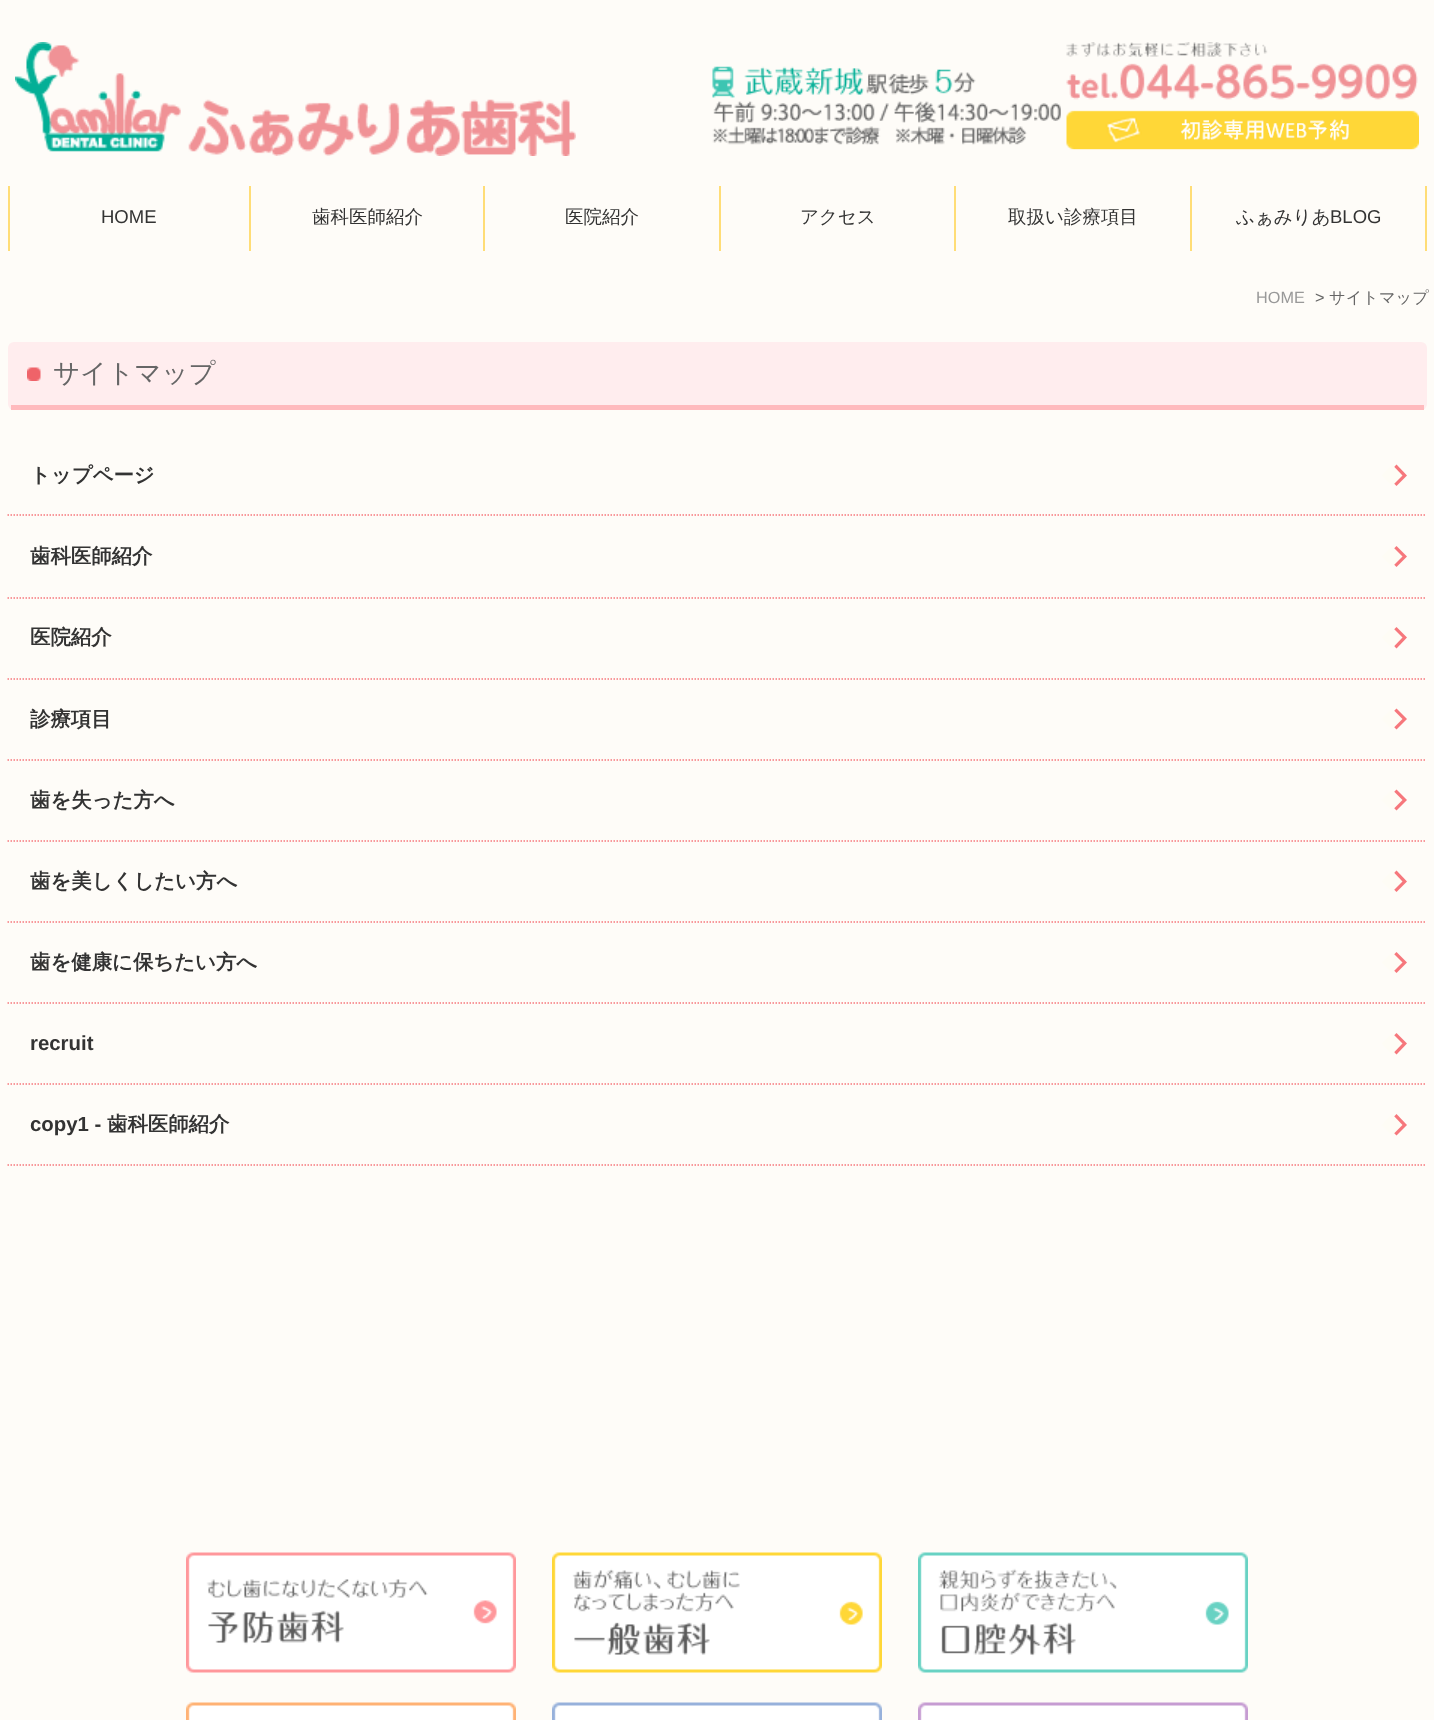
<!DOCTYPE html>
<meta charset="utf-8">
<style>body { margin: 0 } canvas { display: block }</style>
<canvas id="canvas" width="1434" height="1720"></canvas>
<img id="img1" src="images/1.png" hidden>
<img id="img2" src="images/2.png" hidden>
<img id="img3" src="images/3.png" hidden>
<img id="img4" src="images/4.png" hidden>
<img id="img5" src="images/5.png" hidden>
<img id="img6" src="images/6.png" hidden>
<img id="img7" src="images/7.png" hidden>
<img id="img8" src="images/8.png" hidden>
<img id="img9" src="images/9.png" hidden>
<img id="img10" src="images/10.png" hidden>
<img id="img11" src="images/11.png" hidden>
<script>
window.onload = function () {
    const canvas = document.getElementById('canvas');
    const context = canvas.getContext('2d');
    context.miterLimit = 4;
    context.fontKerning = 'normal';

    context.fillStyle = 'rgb(254, 252, 248)';
    context.fillRect(0, 0, 1434, 1720);
    context.drawImage(document.getElementById('img1'), 15, 42, 561, 114);
    context.drawImage(document.getElementById('img2'), 712, 66, 349, 79);
    context.drawImage(document.getElementById('img3'), 1066, 42, 352, 58);
    context.drawImage(document.getElementById('img4'), 1066, 110, 353, 40);
    context.fillStyle = 'rgb(255, 221, 119)';
    context.fillRect(8, 186, 2, 65);
    context.fillRect(249, 186, 2, 65);
    context.fillRect(483, 186, 2, 65);
    context.fillRect(719, 186, 2, 65);
    context.fillRect(954, 186, 2, 65);
    context.fillRect(1190, 186, 2, 65);
    context.fillRect(1425, 186, 2, 65);
    context.fillStyle = 'rgb(255, 237, 238)';
    context.beginPath();
    context.roundRect(8, 342, 1419, 68, 6);
    context.fill();
    context.drawImage(document.getElementById('img5'), 27, 367, 14, 14);
    context.fillStyle = 'rgb(255, 186, 189)';
    context.fillRect(11, 405, 1413, 5);
    context.beginPath();
    context.moveTo(7.5, 515);
    context.lineTo(1426.5, 515);
    context.strokeStyle = 'rgb(246, 119, 124)';
    context.lineWidth = 1.5;
    context.setLineDash([1.5, 1.5]);
    context.stroke();
    context.fillStyle = 'rgb(246, 119, 124)';
    context.beginPath();
    context.moveTo(1396.5, 464.5);
    context.lineTo(1407, 475.5);
    context.lineTo(1396.5, 486);
    context.lineTo(1386, 475.5);
    context.closePath();
    context.fill();
    context.fillStyle = 'rgb(254, 252, 245)';
    context.beginPath();
    context.moveTo(1392, 464.5);
    context.lineTo(1402.5, 475.5);
    context.lineTo(1392, 486);
    context.lineTo(1381.5, 475.5);
    context.closePath();
    context.fill();
    context.beginPath();
    context.moveTo(7.5, 598);
    context.lineTo(1426.5, 598);
    context.stroke();
    context.fillStyle = 'rgb(246, 119, 124)';
    context.beginPath();
    context.moveTo(1396.5, 546);
    context.lineTo(1407, 556.5);
    context.lineTo(1396.5, 567);
    context.lineTo(1386, 556.5);
    context.closePath();
    context.fill();
    context.fillStyle = 'rgb(254, 252, 245)';
    context.beginPath();
    context.moveTo(1392, 546);
    context.lineTo(1402.5, 556.5);
    context.lineTo(1392, 567);
    context.lineTo(1381.5, 556.5);
    context.closePath();
    context.fill();
    context.beginPath();
    context.moveTo(7.5, 679);
    context.lineTo(1426.5, 679);
    context.stroke();
    context.fillStyle = 'rgb(246, 119, 124)';
    context.beginPath();
    context.moveTo(1396.5, 627);
    context.lineTo(1407, 637.5);
    context.lineTo(1396.5, 648.5);
    context.lineTo(1386, 637.5);
    context.closePath();
    context.fill();
    context.fillStyle = 'rgb(254, 252, 245)';
    context.beginPath();
    context.moveTo(1392, 627);
    context.lineTo(1402.5, 637.5);
    context.lineTo(1392, 648.5);
    context.lineTo(1381.5, 637.5);
    context.closePath();
    context.fill();
    context.beginPath();
    context.moveTo(7.5, 760);
    context.lineTo(1426.5, 760);
    context.stroke();
    context.fillStyle = 'rgb(246, 119, 124)';
    context.beginPath();
    context.moveTo(1396.5, 708.5);
    context.lineTo(1407, 719);
    context.lineTo(1396.5, 729.5);
    context.lineTo(1386, 719);
    context.closePath();
    context.fill();
    context.fillStyle = 'rgb(254, 252, 245)';
    context.beginPath();
    context.moveTo(1392, 708.5);
    context.lineTo(1402.5, 719);
    context.lineTo(1392, 729.5);
    context.lineTo(1381.5, 719);
    context.closePath();
    context.fill();
    context.beginPath();
    context.moveTo(7.5, 841);
    context.lineTo(1426.5, 841);
    context.stroke();
    context.fillStyle = 'rgb(246, 119, 124)';
    context.beginPath();
    context.moveTo(1396.5, 789.5);
    context.lineTo(1407, 800);
    context.lineTo(1396.5, 810.5);
    context.lineTo(1386, 800);
    context.closePath();
    context.fill();
    context.fillStyle = 'rgb(254, 252, 245)';
    context.beginPath();
    context.moveTo(1392, 789.5);
    context.lineTo(1402.5, 800);
    context.lineTo(1392, 810.5);
    context.lineTo(1381.5, 800);
    context.closePath();
    context.fill();
    context.beginPath();
    context.moveTo(7.5, 922);
    context.lineTo(1426.5, 922);
    context.stroke();
    context.fillStyle = 'rgb(246, 119, 124)';
    context.beginPath();
    context.moveTo(1396.5, 870.5);
    context.lineTo(1407, 881.5);
    context.lineTo(1396.5, 892);
    context.lineTo(1386, 881.5);
    context.closePath();
    context.fill();
    context.fillStyle = 'rgb(254, 252, 245)';
    context.beginPath();
    context.moveTo(1392, 870.5);
    context.lineTo(1402.5, 881.5);
    context.lineTo(1392, 892);
    context.lineTo(1381.5, 881.5);
    context.closePath();
    context.fill();
    context.beginPath();
    context.moveTo(7.5, 1003);
    context.lineTo(1426.5, 1003);
    context.stroke();
    context.fillStyle = 'rgb(246, 119, 124)';
    context.beginPath();
    context.moveTo(1396.5, 952);
    context.lineTo(1407, 962.5);
    context.lineTo(1396.5, 973);
    context.lineTo(1386, 962.5);
    context.closePath();
    context.fill();
    context.fillStyle = 'rgb(254, 252, 245)';
    context.beginPath();
    context.moveTo(1392, 952);
    context.lineTo(1402.5, 962.5);
    context.lineTo(1392, 973);
    context.lineTo(1381.5, 962.5);
    context.closePath();
    context.fill();
    context.beginPath();
    context.moveTo(7.5, 1084);
    context.lineTo(1426.5, 1084);
    context.stroke();
    context.fillStyle = 'rgb(246, 119, 124)';
    context.beginPath();
    context.moveTo(1396.5, 1033);
    context.lineTo(1407, 1043.5);
    context.lineTo(1396.5, 1054.5);
    context.lineTo(1386, 1043.5);
    context.closePath();
    context.fill();
    context.fillStyle = 'rgb(254, 252, 245)';
    context.beginPath();
    context.moveTo(1392, 1033);
    context.lineTo(1402.5, 1043.5);
    context.lineTo(1392, 1054.5);
    context.lineTo(1381.5, 1043.5);
    context.closePath();
    context.fill();
    context.beginPath();
    context.moveTo(7.5, 1165);
    context.lineTo(1426.5, 1165);
    context.stroke();
    context.fillStyle = 'rgb(246, 119, 124)';
    context.beginPath();
    context.moveTo(1396.5, 1114);
    context.lineTo(1407, 1125);
    context.lineTo(1396.5, 1135.5);
    context.lineTo(1386, 1125);
    context.closePath();
    context.fill();
    context.fillStyle = 'rgb(254, 252, 245)';
    context.beginPath();
    context.moveTo(1392, 1114);
    context.lineTo(1402.5, 1125);
    context.lineTo(1392, 1135.5);
    context.lineTo(1381.5, 1125);
    context.closePath();
    context.fill();
    context.drawImage(document.getElementById('img6'), 186, 1552, 330, 121);
    context.drawImage(document.getElementById('img7'), 552, 1552, 330, 121);
    context.drawImage(document.getElementById('img8'), 918, 1552, 330, 121);
    context.drawImage(document.getElementById('img9'), 186, 1702, 330, 18);
    context.drawImage(document.getElementById('img10'), 552, 1702, 330, 18);
    context.drawImage(document.getElementById('img11'), 918, 1702, 330, 18);
    context.font = '18.5px Liberation Sans';
    context.fillStyle = 'rgb(51, 51, 51)';
    context.fillText('HOME', 101, 223);
    context.font = '500 18.5px WenQuanYi Zen Hei';
    context.fillText('歯科医師紹介', 312, 223);
    context.fillText('医院紹介', 565, 223);
    context.fillText('アクセス', 800, 223);
    context.fillText('取扱い診療項目', 1008, 223);
    context.fillText('ふぁみりあ', 1236, 223);
    context.font = '18.5px Liberation Sans';
    context.fillText('BLOG', 1330, 223);
    context.font = '16.25px Liberation Sans';
    context.fillStyle = 'rgb(153, 153, 153)';
    context.fillText('HOME', 1256, 303);
    context.fillStyle = 'rgb(102, 102, 102)';
    context.fillText('>', 1315, 303);
    context.font = '500 16.25px WenQuanYi Zen Hei';
    context.fillText('サイトマップ', 1329, 303);
    context.font = '500 26.5px WenQuanYi Zen Hei';
    context.fillText('サイトマップ', 53, 382);
    context.font = 'bold 20.4px WenQuanYi Zen Hei';
    context.fillStyle = 'rgb(51, 51, 51)';
    context.fillText('トップページ', 30, 482);
    context.fillText('歯科医師紹介', 30, 563);
    context.fillText('医院紹介', 30, 644);
    context.fillText('診療項目', 30, 726);
    context.fillText('歯を失った方へ', 30, 807);
    context.fillText('歯を美しくしたい方へ', 30, 888);
    context.fillText('歯を健康に保ちたい方へ', 30, 969);
    context.font = 'bold 20.4px Liberation Sans';
    context.fillText('recruit', 30, 1050);
    context.font = 'bold 20.4px WenQuanYi Zen Hei';
    context.fillText('歯科医師紹介', 107, 1131);
    context.font = 'bold 20.4px Liberation Sans';
    context.fillText('copy1 -', 30, 1131);
};
</script>
